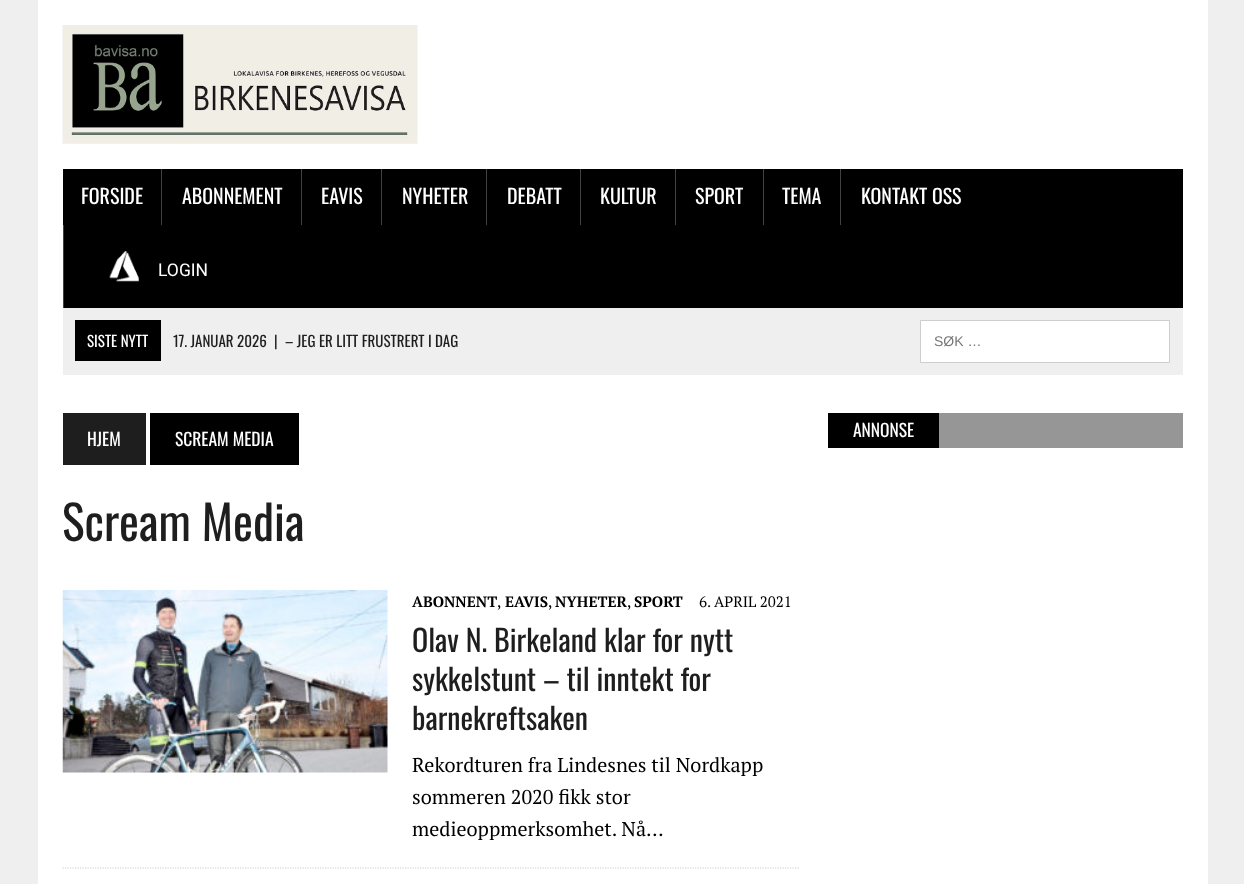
<!DOCTYPE html>
<meta charset="utf-8">
<style>body { margin: 0 } canvas { display: block }</style>
<canvas id="canvas" width="1244" height="884"></canvas>
<img id="img1" src="images/1.png" hidden>
<img id="img2" src="images/2.png" hidden>
<img id="img3" src="images/3.png" hidden>
<script>
window.onload = function () {
    const canvas = document.getElementById('canvas');
    const context = canvas.getContext('2d');
    context.miterLimit = 4;
    context.fontKerning = 'normal';

    context.fillStyle = 'rgb(239, 239, 239)';
    context.fillRect(0, 0, 1244, 884);
    context.fillStyle = 'rgb(255, 255, 255)';
    context.fillRect(38, 0, 1170, 884);
    context.drawImage(document.getElementById('img1'), 62, 25, 356, 119);
    context.fillStyle = 'rgb(0, 0, 0)';
    context.fillRect(63, 169, 1120, 139);
    context.fillStyle = 'rgb(66, 66, 66)';
    context.fillRect(161, 169, 1, 56);
    context.fillRect(301, 169, 1, 56);
    context.fillRect(381, 169, 1, 56);
    context.fillRect(486, 169, 1, 56);
    context.fillRect(580, 169, 1, 56);
    context.fillRect(675, 169, 1, 56);
    context.fillRect(763, 169, 1, 56);
    context.fillRect(840, 169, 1, 56);
    context.fillRect(63, 225, 1, 83);
    context.drawImage(document.getElementById('img2'), 109, 251, 30, 31);
    context.fillStyle = 'rgb(239, 239, 239)';
    context.fillRect(63, 308, 1120, 67);
    context.fillStyle = 'rgb(0, 0, 0)';
    context.fillRect(75, 320, 86, 41);
    context.fillStyle = 'rgb(255, 255, 255)';
    context.beginPath();
    context.rect(920.5, 320.5, 249, 42);
    context.fill();
    context.strokeStyle = 'rgb(205, 205, 205)';
    context.stroke();
    context.fillStyle = 'rgb(31, 30, 30)';
    context.fillRect(63, 413, 83, 52);
    context.fillStyle = 'rgb(0, 0, 0)';
    context.fillRect(150, 413, 149, 52);
    context.drawImage(document.getElementById('img3'), 62, 590, 326, 183);
    context.beginPath();
    context.moveTo(62.5, 868);
    context.lineTo(800, 868);
    context.lineWidth = 1.2;
    context.setLineDash([1.25, 1.25]);
    context.stroke();
    context.fillStyle = 'rgb(150, 150, 150)';
    context.fillRect(939, 413, 244, 35);
    context.fillStyle = 'rgb(0, 0, 0)';
    context.fillRect(828, 413, 111, 35);
    context.font = '20px Oswald';
    context.fillStyle = 'rgb(255, 255, 255)';
    context.fillText('FORSIDE', 81, 204);
    context.fillText('ABONNEMENT', 182, 204);
    context.fillText('EAVIS', 321, 204);
    context.fillText('NYHETER', 402, 204);
    context.fillText('DEBATT', 507, 204);
    context.fillText('KULTUR', 600, 204);
    context.fillText('SPORT', 695, 204);
    context.fillText('TEMA', 782, 204);
    context.fillText('KONTAKT OSS', 861, 204);
    context.font = '17.5px Roboto';
    context.fillText('LOGIN', 158, 276);
    context.font = '15px Oswald';
    context.fillText('SISTE NYTT', 87, 347);
    context.fillStyle = 'rgb(31, 30, 30)';
    context.fillText('17. JANUAR 2026', 173, 347);
    context.fillText('|', 274, 347);
    context.fillText('– JEG ER LITT FRUSTRERT I DAG', 285, 347);
    context.font = '14px Liberation Sans';
    context.fillStyle = 'rgb(117, 117, 117)';
    context.fillText('SØK …', 934, 346);
    context.font = '17.5px Oswald';
    context.fillStyle = 'rgb(255, 255, 255)';
    context.fillText('HJEM', 87, 446);
    context.fillText('SCREAM MEDIA', 175, 446);
    context.font = '47.5px Oswald';
    context.fillStyle = 'rgb(31, 30, 30)';
    context.fillText('Scream Media', 62, 541);
    context.font = 'bold 15px PT Serif';
    context.fillStyle = 'rgb(0, 0, 0)';
    context.fillText('ABONNENT', 412, 607);
    context.font = '15px PT Serif';
    context.fillText(',', 497, 607);
    context.font = 'bold 15px PT Serif';
    context.fillText('EAVIS', 505, 607);
    context.font = '15px PT Serif';
    context.fillText(',', 548, 607);
    context.font = 'bold 15px PT Serif';
    context.fillText('NYHETER', 555, 607);
    context.font = '15px PT Serif';
    context.fillText(',', 627, 607);
    context.font = 'bold 15px PT Serif';
    context.fillText('SPORT', 634, 607);
    context.font = '15px PT Serif';
    context.fillText('6. APRIL 2021', 699, 607);
    context.font = '30px Oswald';
    context.fillStyle = 'rgb(31, 30, 30)';
    context.fillText('Olav N. Birkeland klar for nytt', 412, 652);
    context.fillText('sykkelstunt – til inntekt for', 412, 691);
    context.fillText('barnekreftsaken', 412, 730);
    context.font = '20px PT Serif';
    context.fillStyle = 'rgb(0, 0, 0)';
    context.fillText('Rekordturen fra Lindesnes til Nordkapp', 412, 772);
    context.fillText('sommeren 2020 fikk stor', 412, 804);
    context.fillText('medieoppmerksomhet. Nå…', 412, 836);
    context.font = '17.5px Oswald';
    context.fillStyle = 'rgb(255, 255, 255)';
    context.fillText('ANNONSE', 853, 437);
};
</script>
